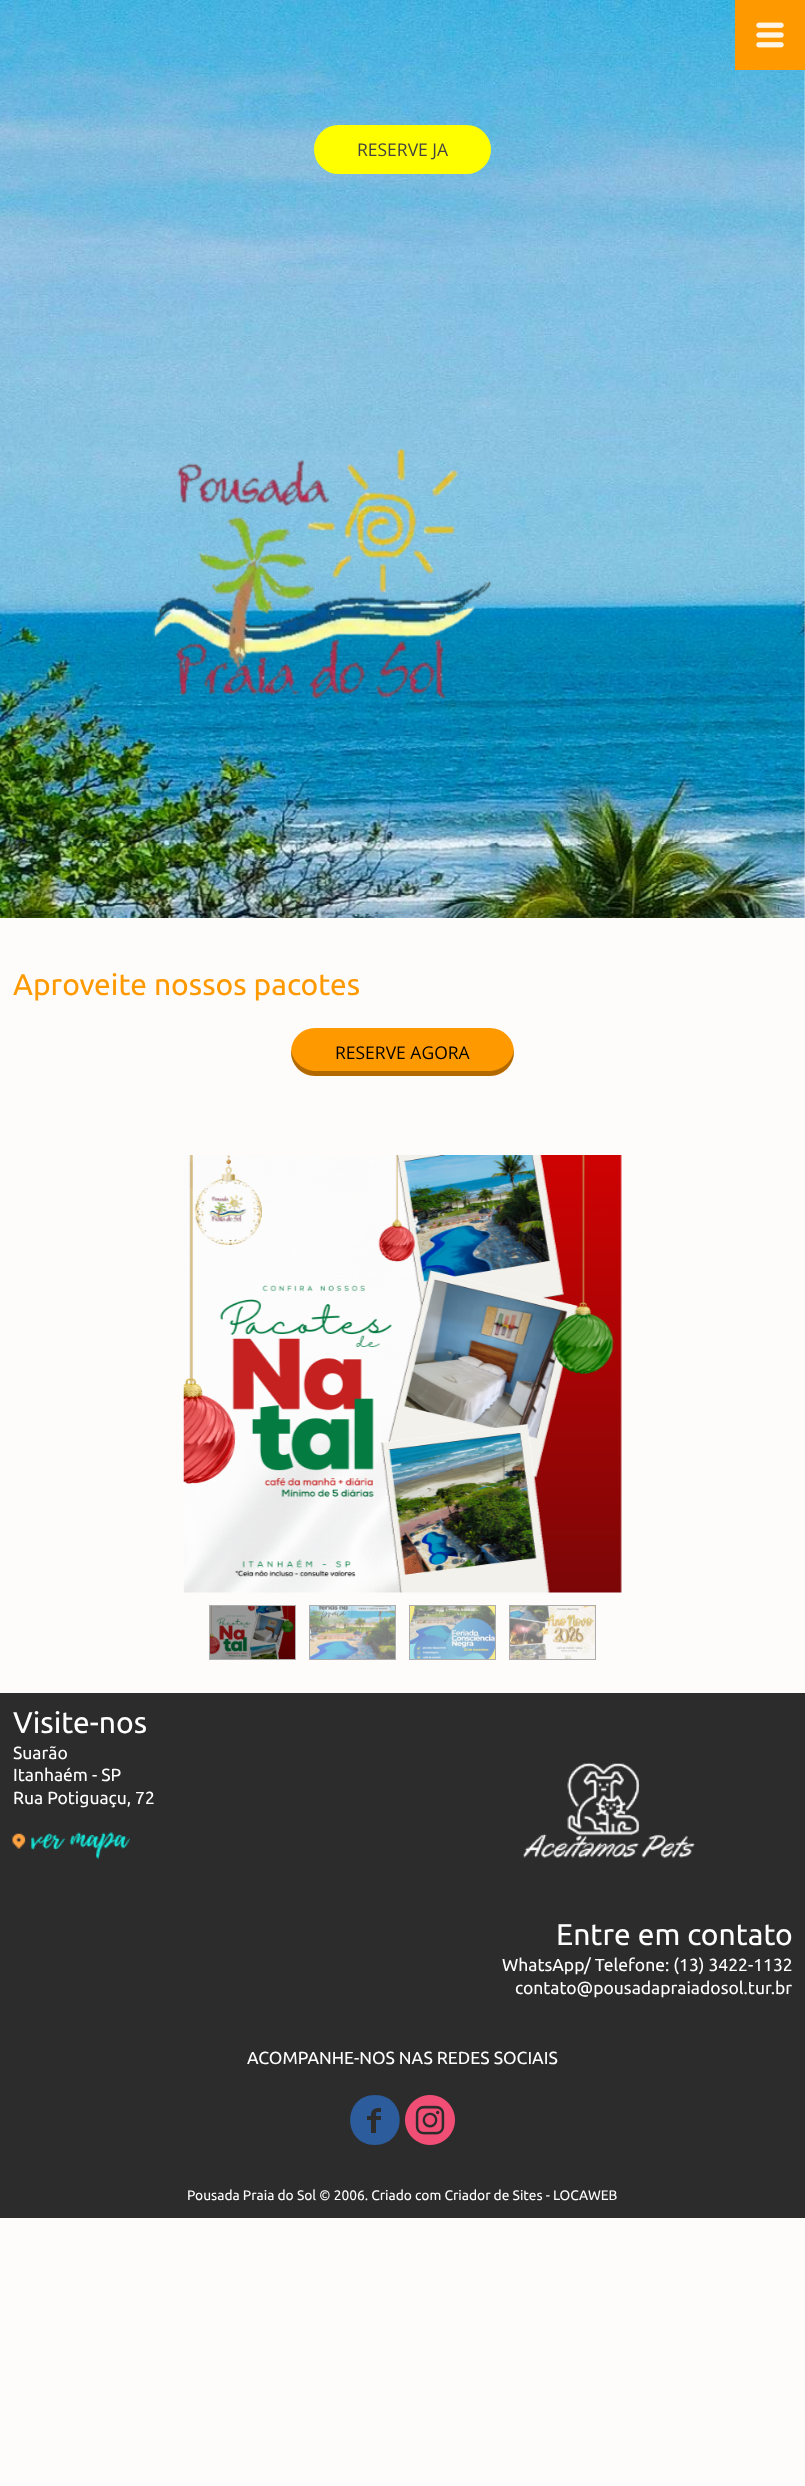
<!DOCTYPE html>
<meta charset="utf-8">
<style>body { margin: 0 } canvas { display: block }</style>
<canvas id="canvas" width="805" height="2486"></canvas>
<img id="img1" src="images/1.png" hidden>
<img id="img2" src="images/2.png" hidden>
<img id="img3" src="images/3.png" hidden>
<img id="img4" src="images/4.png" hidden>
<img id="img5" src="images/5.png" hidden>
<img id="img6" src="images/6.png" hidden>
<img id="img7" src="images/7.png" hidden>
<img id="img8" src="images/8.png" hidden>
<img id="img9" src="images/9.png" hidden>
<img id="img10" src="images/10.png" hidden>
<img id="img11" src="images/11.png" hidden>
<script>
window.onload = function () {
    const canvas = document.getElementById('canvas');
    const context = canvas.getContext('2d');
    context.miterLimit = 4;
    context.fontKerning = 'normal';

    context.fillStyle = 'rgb(253, 252, 251)';
    context.fillRect(0, 0, 805, 2486);
    context.drawImage(document.getElementById('img1'), 0, 0, 805, 918);
    context.fillStyle = 'rgb(255, 153, 0)';
    context.fillRect(735, 0, 70, 70);
    context.drawImage(document.getElementById('img2'), 756, 22, 28, 26);
    context.fillStyle = 'rgb(255, 255, 0)';
    context.beginPath();
    context.roundRect(314, 125, 177, 49, 24.5);
    context.fill();
    context.drawImage(document.getElementById('img3'), 153, 448, 339, 255);
    context.fillStyle = 'rgb(255, 153, 0)';
    context.beginPath();
    context.roundRect(291, 1028, 223, 48, 24);
    context.fill();
    context.fillStyle = 'rgba(0, 0, 0, 0.3)';
    context.beginPath();
    context.moveTo(291, 1049);
    context.lineTo(291, 1052);
    context.bezierCurveTo(291, 1065, 302, 1076, 315, 1076);
    context.lineTo(490, 1076);
    context.bezierCurveTo(503, 1076, 514, 1065, 514, 1052);
    context.lineTo(514, 1049);
    context.bezierCurveTo(513, 1061, 502, 1071, 489, 1071);
    context.lineTo(316, 1071);
    context.bezierCurveTo(303, 1071, 292, 1061, 291, 1049);
    context.closePath();
    context.fill();
    context.drawImage(document.getElementById('img4'), 183, 1155, 439, 438);
    context.drawImage(document.getElementById('img5'), 210, 1606, 85, 53);
    context.strokeStyle = 'rgb(173, 173, 173)';
    context.strokeRect(209.5, 1605.5, 86, 54);
    context.drawImage(document.getElementById('img6'), 310, 1606, 85, 53);
    context.strokeRect(309.5, 1605.5, 86, 54);
    context.drawImage(document.getElementById('img7'), 410, 1606, 85, 53);
    context.strokeRect(409.5, 1605.5, 86, 54);
    context.drawImage(document.getElementById('img8'), 510, 1606, 85, 53);
    context.strokeRect(509.5, 1605.5, 86, 54);
    context.fillStyle = 'rgb(44, 44, 44)';
    context.fillRect(0, 1693, 805, 525);
    context.drawImage(document.getElementById('img9'), 12, 1832, 118, 27);
    context.drawImage(document.getElementById('img10'), 523, 1762, 172, 96);
    context.fillStyle = 'rgb(44, 92, 155)';
    context.beginPath();
    context.moveTo(375, 2095);
    context.bezierCurveTo(342, 2095, 342, 2145, 375, 2145);
    context.bezierCurveTo(408, 2145, 408, 2095, 375, 2095);
    context.closePath();
    context.moveTo(381, 2112);
    context.bezierCurveTo(376, 2112, 376, 2111, 376, 2116);
    context.lineTo(381, 2116);
    context.lineTo(381, 2120);
    context.lineTo(376, 2120);
    context.lineTo(376, 2133);
    context.lineTo(371, 2133);
    context.lineTo(371, 2120);
    context.lineTo(367, 2120);
    context.lineTo(367, 2116);
    context.lineTo(371, 2116);
    context.bezierCurveTo(371, 2109, 374, 2108, 381, 2108);
    context.closePath();
    context.fill();
    context.drawImage(document.getElementById('img11'), 405, 2095, 50, 50);
    context.font = '17.5px Open Sans';
    context.fillStyle = 'rgb(67, 67, 67)';
    context.fillText('RESERVE JA', 357, 156);
    context.font = '30px Ubuntu';
    context.fillStyle = 'rgb(255, 153, 0)';
    context.fillText('Aproveite nossos pacotes', 13, 995);
    context.font = '17.5px Open Sans';
    context.fillStyle = 'rgb(0, 0, 0)';
    context.fillText('RESERVE AGORA', 335, 1059);
    context.font = '30px Ubuntu';
    context.fillStyle = 'rgb(255, 255, 255)';
    context.fillText('Visite-nos', 13, 1733);
    context.font = '17.5px Ubuntu';
    context.fillText('Suarão', 13, 1759);
    context.fillText('Itanhaém - SP', 13, 1781);
    context.fillText('Rua Potiguaçu, 72', 13, 1804);
    context.font = '30px Ubuntu';
    context.fillText('Entre em contato', 556, 1945);
    context.font = '17.5px Ubuntu';
    context.fillText('WhatsApp/ Telefone: (13) 3422-1132', 502, 1971);
    context.fillText('contato@pousadapraiadosol.tur.br', 515, 1994);
    context.fillText('ACOMPANHE-NOS NAS REDES SOCIAIS', 247, 2064);
    context.font = '13.75px Ubuntu';
    context.fillText('Pousada Praia do Sol © 2006. Criado com Criador de Sites - LOCAWEB', 187, 2200);
};
</script>
